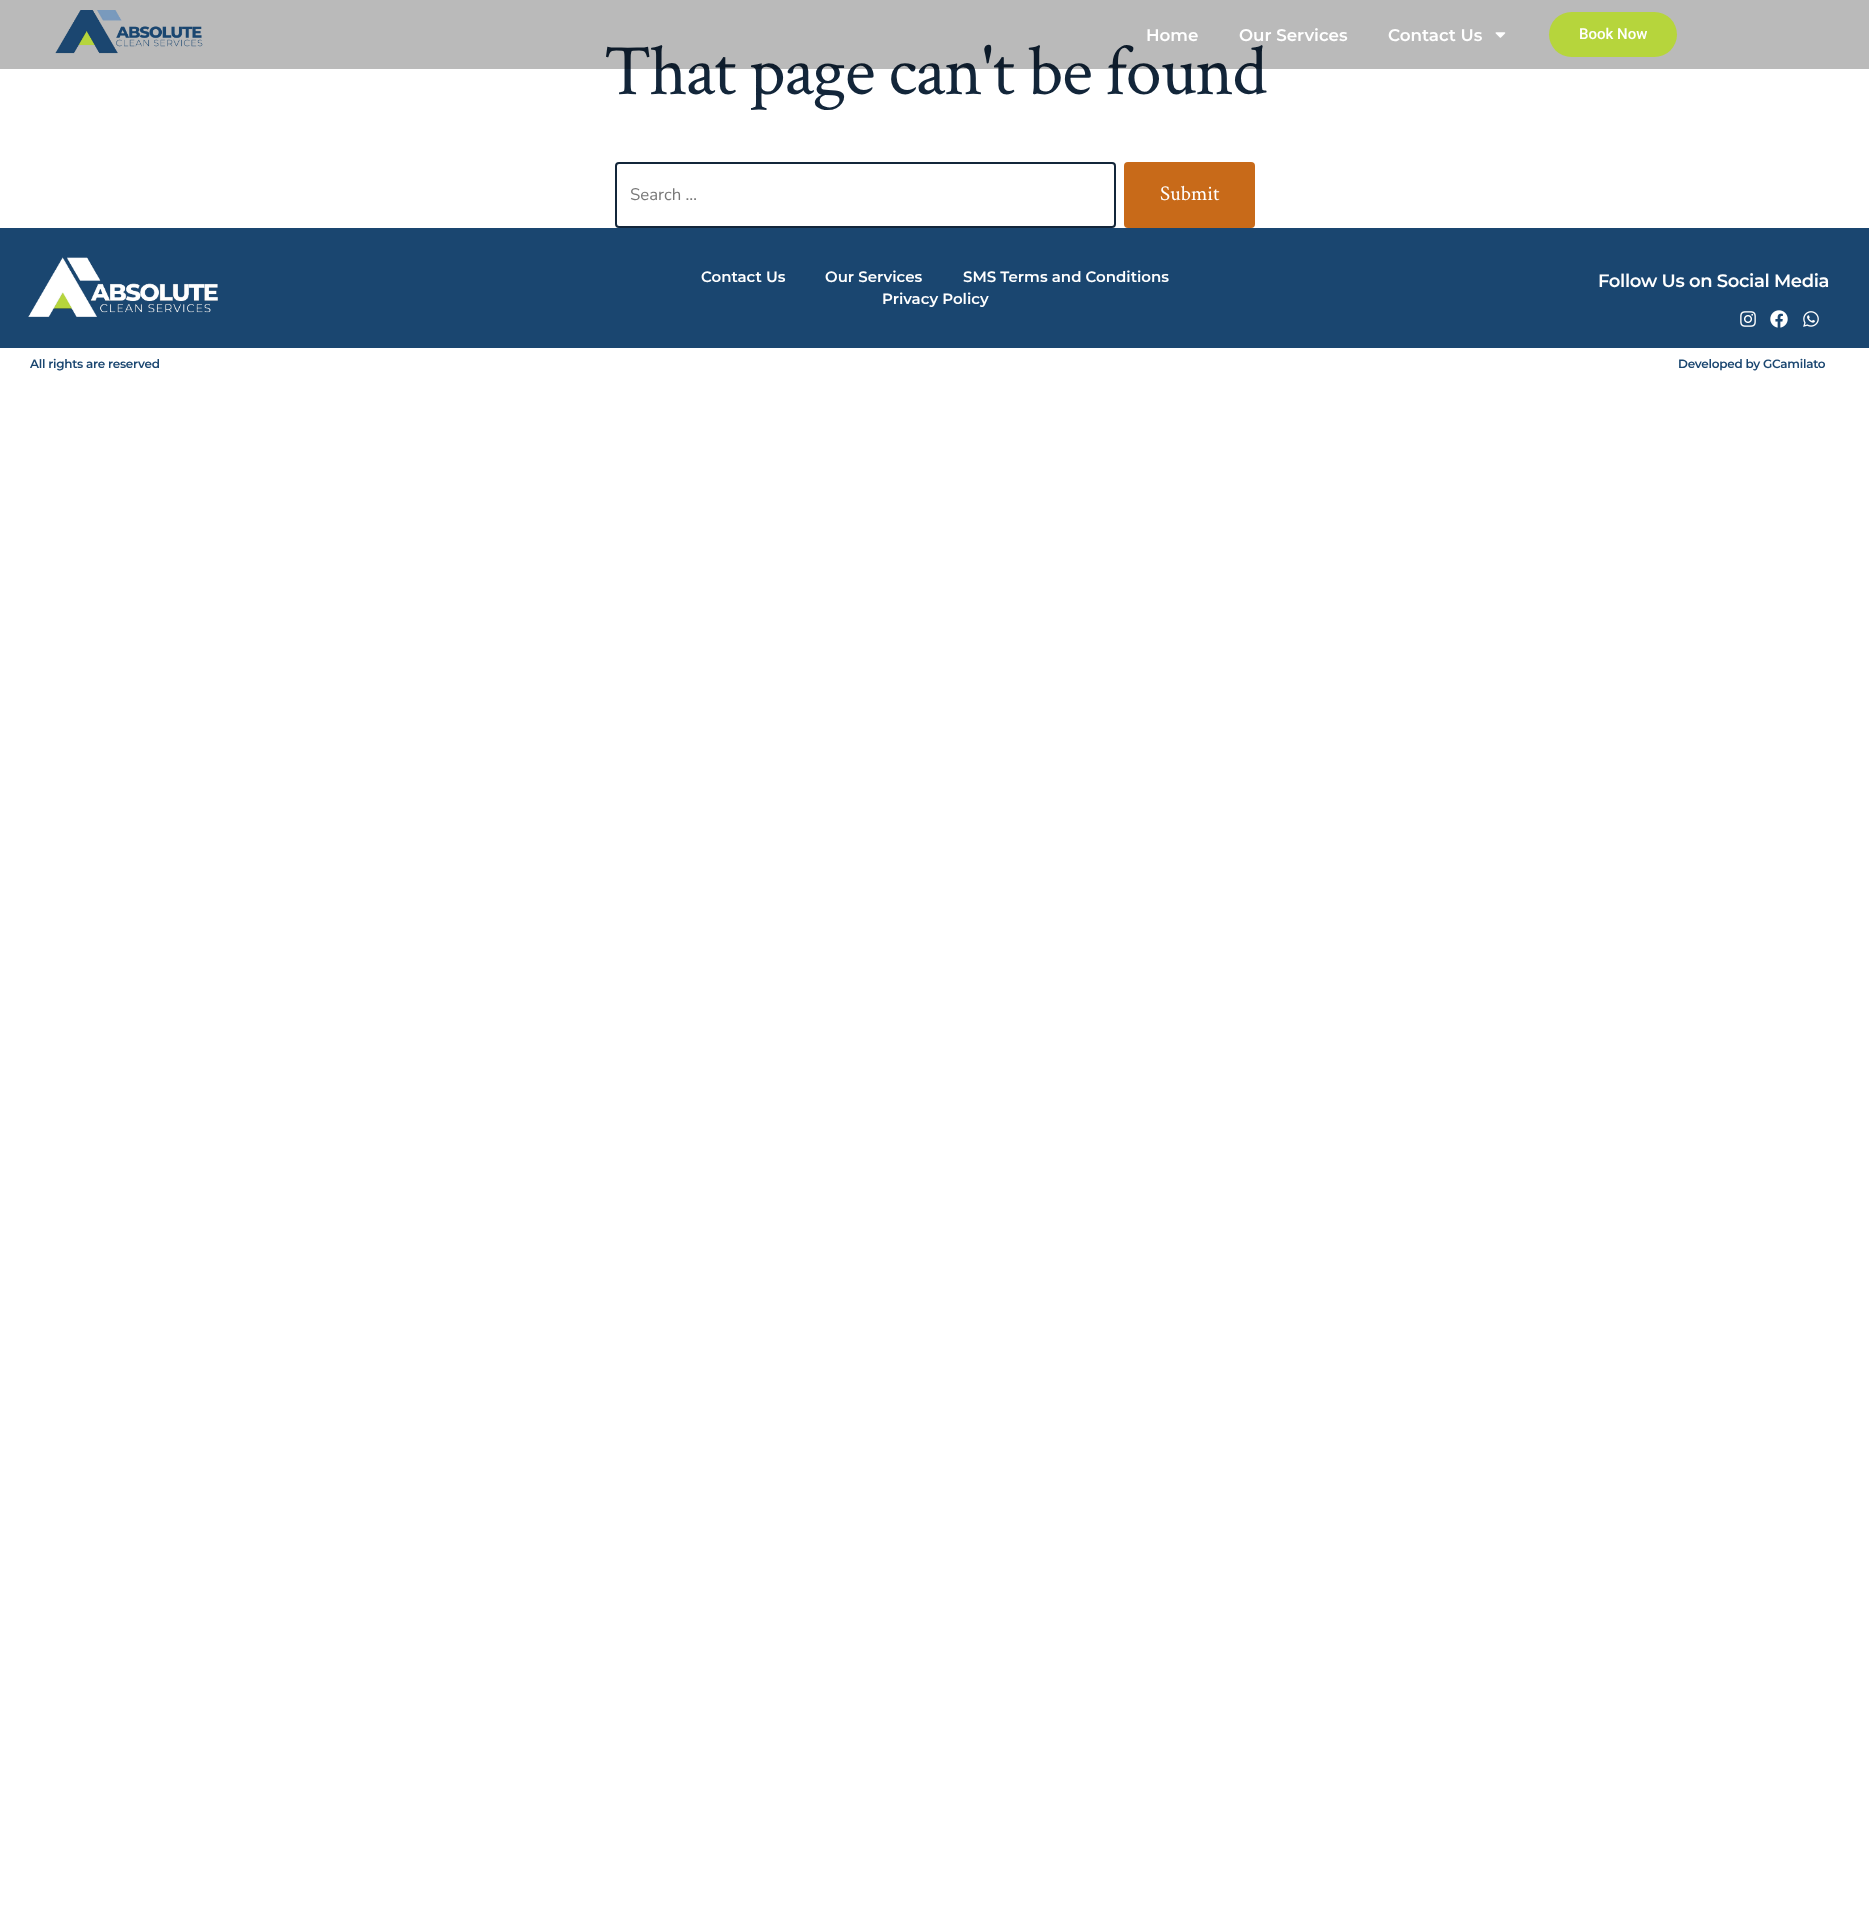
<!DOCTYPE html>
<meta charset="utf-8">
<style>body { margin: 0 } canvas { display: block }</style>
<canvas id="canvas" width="1869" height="1906"></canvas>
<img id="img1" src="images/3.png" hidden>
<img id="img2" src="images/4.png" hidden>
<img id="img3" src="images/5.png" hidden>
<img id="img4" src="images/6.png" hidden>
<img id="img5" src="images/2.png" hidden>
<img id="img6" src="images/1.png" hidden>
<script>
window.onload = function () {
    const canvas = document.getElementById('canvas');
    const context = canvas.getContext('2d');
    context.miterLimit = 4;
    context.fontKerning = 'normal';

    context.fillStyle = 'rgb(255, 255, 255)';
    context.fillRect(0, 0, 1869, 1906);
    context.beginPath();
    context.roundRect(616, 163, 499, 64, 3);
    context.strokeStyle = 'rgb(19, 38, 58)';
    context.lineWidth = 2;
    context.stroke();
    context.fillStyle = 'rgb(200, 106, 25)';
    context.beginPath();
    context.roundRect(1124, 162, 131, 66, 4);
    context.fill();
    context.fillStyle = 'rgb(26, 70, 112)';
    context.fillRect(0, 228, 1869, 120);
    context.drawImage(document.getElementById('img1'), 28, 257, 190, 60);
    context.drawImage(document.getElementById('img2'), 1740, 311, 16, 16);
    context.drawImage(document.getElementById('img3'), 1770, 310, 18, 18);
    context.drawImage(document.getElementById('img4'), 1803, 311, 16, 16);
    context.letterSpacing = '-1.4px';
    context.font = '72.25px Crimson Text';
    context.fillStyle = 'rgb(19, 38, 58)';
    context.fillText('That page can\'t be found', 604, 94);
    context.fillStyle = 'rgba(0, 0, 0, 0.27)';
    context.fillRect(0, 0, 1869, 69);
    context.drawImage(document.getElementById('img5'), 1495, 32, 11, 6);
    context.letterSpacing = '0px';
    context.font = '600 16.75px Montserrat';
    context.fillStyle = 'rgb(255, 255, 255)';
    context.fillText('Contact Us', 1388, 41);
    context.fillText('Our Services', 1239, 41);
    context.fillText('Home', 1146, 41);
    context.fillStyle = 'rgb(182, 213, 60)';
    context.beginPath();
    context.roundRect(1549, 12, 128, 45, 22.5);
    context.fill();
    context.font = '500 15px Roboto';
    context.fillStyle = 'rgb(255, 255, 255)';
    context.fillText('Book Now', 1579, 39);
    context.drawImage(document.getElementById('img6'), 55, 10, 148, 44);
    context.font = '16.75px Nunito Sans';
    context.fillStyle = 'rgb(120, 120, 120)';
    context.fillText('Search …', 630, 200);
    context.font = '21px Crimson Text';
    context.fillStyle = 'rgb(255, 255, 255)';
    context.fillText('Submit', 1160, 200);
    context.font = '600 15px Montserrat';
    context.fillText('Contact Us', 701, 282);
    context.fillText('Our Services', 825, 282);
    context.fillText('SMS Terms and Conditions', 963, 282);
    context.fillText('Privacy Policy', 882, 304);
    context.letterSpacing = '-0.35px';
    context.font = '600 18px Montserrat';
    context.fillText('Follow Us on Social Media', 1598, 287);
    context.letterSpacing = '-0.25px';
    context.font = '600 12px Montserrat';
    context.fillStyle = 'rgb(26, 70, 112)';
    context.fillText('All rights are reserved', 30, 368);
    context.fillText('Developed by GCamilato', 1678, 368);
};
</script>
